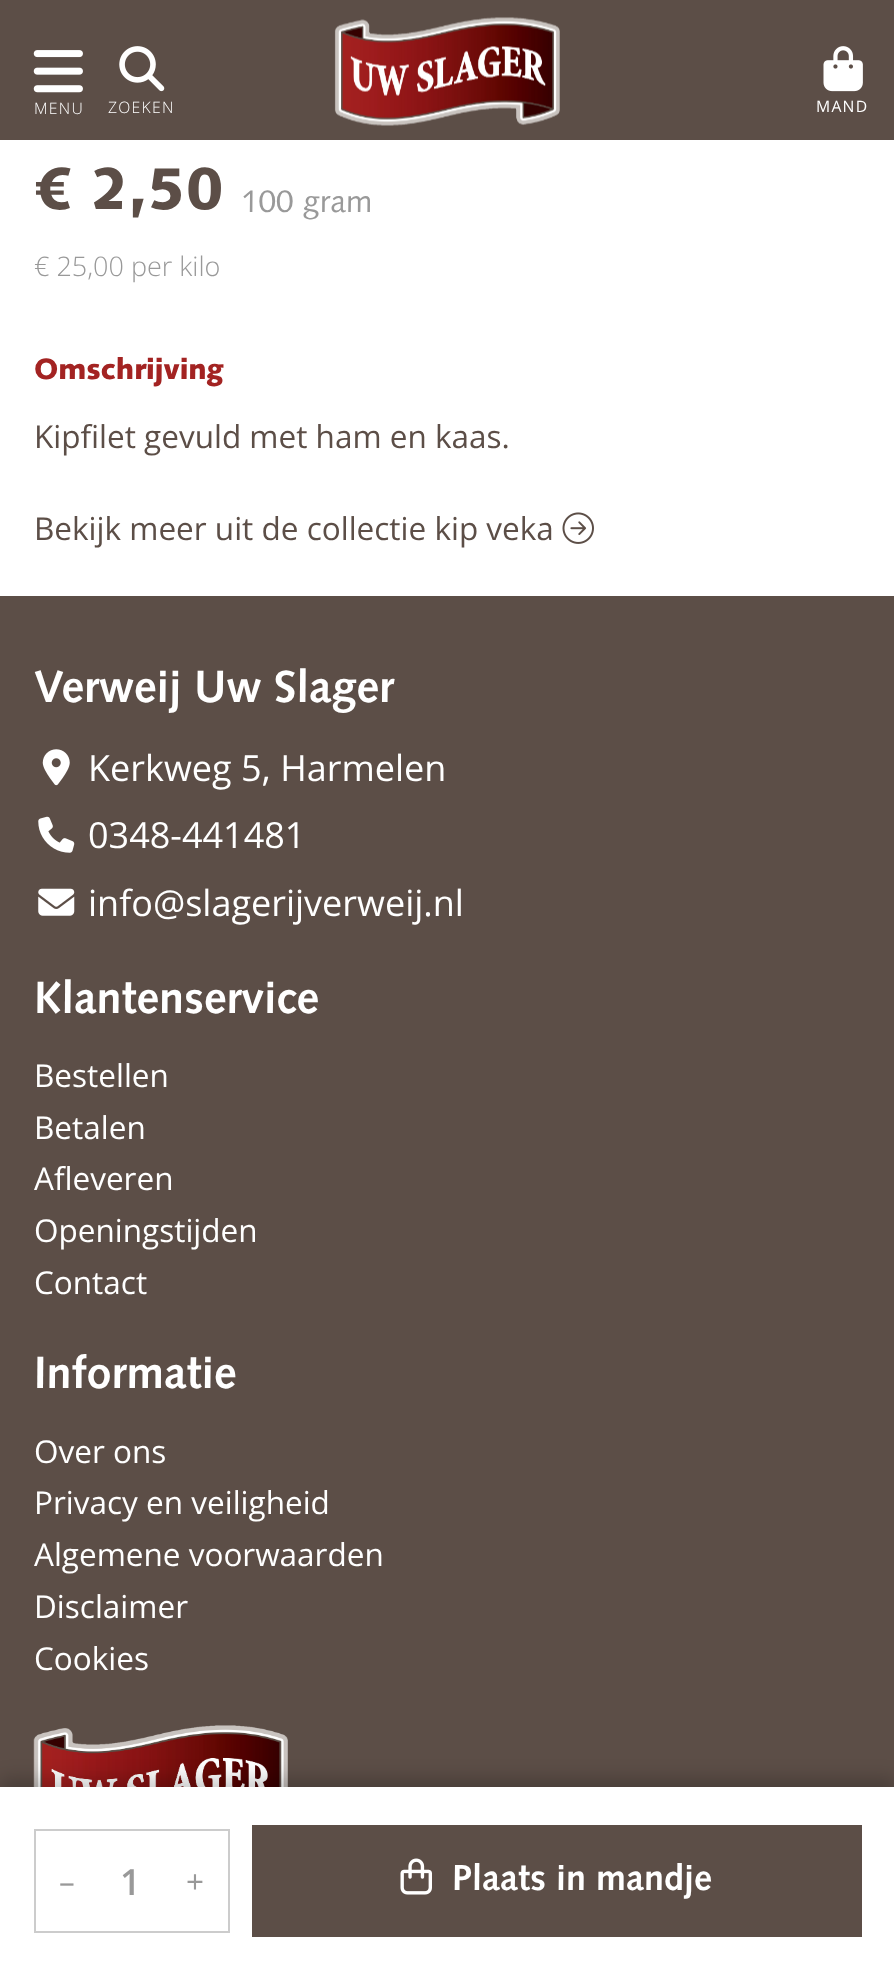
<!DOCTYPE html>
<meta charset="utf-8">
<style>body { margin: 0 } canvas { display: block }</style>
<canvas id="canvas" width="894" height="1974"></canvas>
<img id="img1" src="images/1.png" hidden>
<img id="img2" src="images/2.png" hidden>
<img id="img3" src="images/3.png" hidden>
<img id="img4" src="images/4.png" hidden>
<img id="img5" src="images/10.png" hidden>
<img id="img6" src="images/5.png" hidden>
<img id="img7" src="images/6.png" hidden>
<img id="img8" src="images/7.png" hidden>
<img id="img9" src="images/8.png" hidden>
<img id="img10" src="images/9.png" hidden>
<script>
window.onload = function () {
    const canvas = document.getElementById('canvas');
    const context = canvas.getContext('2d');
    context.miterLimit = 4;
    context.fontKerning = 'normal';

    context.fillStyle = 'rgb(255, 255, 255)';
    context.fillRect(0, 0, 894, 1974);
    context.fillStyle = 'rgb(92, 78, 71)';
    context.fillRect(0, 0, 894, 140);
    context.drawImage(document.getElementById('img1'), 33, 50, 50, 43);
    context.drawImage(document.getElementById('img2'), 119, 46, 46, 46);
    context.drawImage(document.getElementById('img3'), 334, 17, 226, 109);
    context.drawImage(document.getElementById('img4'), 823, 46, 40, 46);
    context.fillRect(0, 596, 894, 1191);
    context.drawImage(document.getElementById('img5'), 33, 1725, 255, 62);
    context.fillStyle = 'rgba(0, 0, 0, 0.2)';
    context.filter = 'blur(9px)';
    context.beginPath();
    context.rect(0, 1778, 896, 189);
    context.fill();
    context.filter = 'none';
    context.fillStyle = 'rgb(255, 255, 255)';
    context.fillRect(0, 1787, 894, 187);
    context.strokeStyle = 'rgb(204, 204, 204)';
    context.lineWidth = 2;
    context.strokeRect(35, 1830, 194, 102);
    context.fillStyle = 'rgb(92, 78, 71)';
    context.fillRect(252, 1825, 610, 112);
    context.drawImage(document.getElementById('img6'), 400, 1858, 32, 37);
    context.drawImage(document.getElementById('img7'), 562, 512, 32, 32);
    context.drawImage(document.getElementById('img8'), 42, 749, 28, 37);
    context.drawImage(document.getElementById('img9'), 38, 816, 37, 37);
    context.drawImage(document.getElementById('img10'), 38, 888, 37, 28);
    context.letterSpacing = '1.25px';
    context.font = '300 15.75px Open Sans';
    context.fillStyle = 'rgb(255, 255, 255)';
    context.fillText('MENU', 34, 114);
    context.fillText('ZOEKEN', 108, 113);
    context.font = '15.75px Open Sans';
    context.fillText('MAND', 816, 112);
    context.letterSpacing = '0px';
    context.font = '900 58.5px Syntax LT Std';
    context.fillStyle = 'rgb(92, 78, 71)';
    context.fillText('€ 2,50', 34, 209);
    context.font = '31.5px Syntax LT Std';
    context.fillStyle = 'rgb(153, 153, 153)';
    context.fillText('100 gram', 241, 212);
    context.font = '300 27px Open Sans';
    context.fillText('€ 25,00 per kilo', 34, 276);
    context.font = '31.5px Open Sans';
    context.fillText('–', 59, 1893);
    context.font = '600 36px Open Sans';
    context.fillText('1', 120, 1895);
    context.font = '31.5px Open Sans';
    context.fillText('+', 186, 1893);
    context.font = 'bold 36px Syntax LT Std';
    context.fillStyle = 'rgb(255, 255, 255)';
    context.fillText('Plaats in mandje', 452, 1890);
    context.font = '31.5px Open Sans';
    context.fillStyle = 'rgb(92, 78, 71)';
    context.fillText('Bekijk meer uit de collectie kip veka', 34, 540);
    context.font = '900 29.25px Syntax LT Std';
    context.fillStyle = 'rgb(163, 35, 34)';
    context.fillText('Omschrijving', 34, 379);
    context.font = '31.5px Open Sans';
    context.fillStyle = 'rgb(92, 78, 71)';
    context.fillText('Kipfilet gevuld met ham en kaas.', 34, 448);
    context.font = 'bold 45px Syntax LT Std';
    context.fillStyle = 'rgb(255, 255, 255)';
    context.fillText('Verweij Uw Slager', 34, 702);
    context.font = '36px Open Sans';
    context.fillText('Kerkweg 5, Harmelen', 88, 781);
    context.fillText('0348-441481', 88, 848);
    context.fillText('info@slagerijverweij.nl', 88, 916);
    context.font = 'bold 45px Syntax LT Std';
    context.fillText('Klantenservice', 34, 1013);
    context.font = '31.5px Open Sans';
    context.fillText('Bestellen', 34, 1087);
    context.fillText('Betalen', 34, 1139);
    context.fillText('Afleveren', 34, 1190);
    context.fillText('Openingstijden', 34, 1242);
    context.fillText('Contact', 34, 1294);
    context.font = 'bold 45px Syntax LT Std';
    context.fillText('Informatie', 34, 1388);
    context.font = '31.5px Open Sans';
    context.fillText('Over ons', 34, 1463);
    context.fillText('Privacy en veiligheid', 34, 1514);
    context.fillText('Algemene voorwaarden', 34, 1566);
    context.fillText('Disclaimer', 34, 1618);
    context.fillText('Cookies', 34, 1670);
};
</script>
